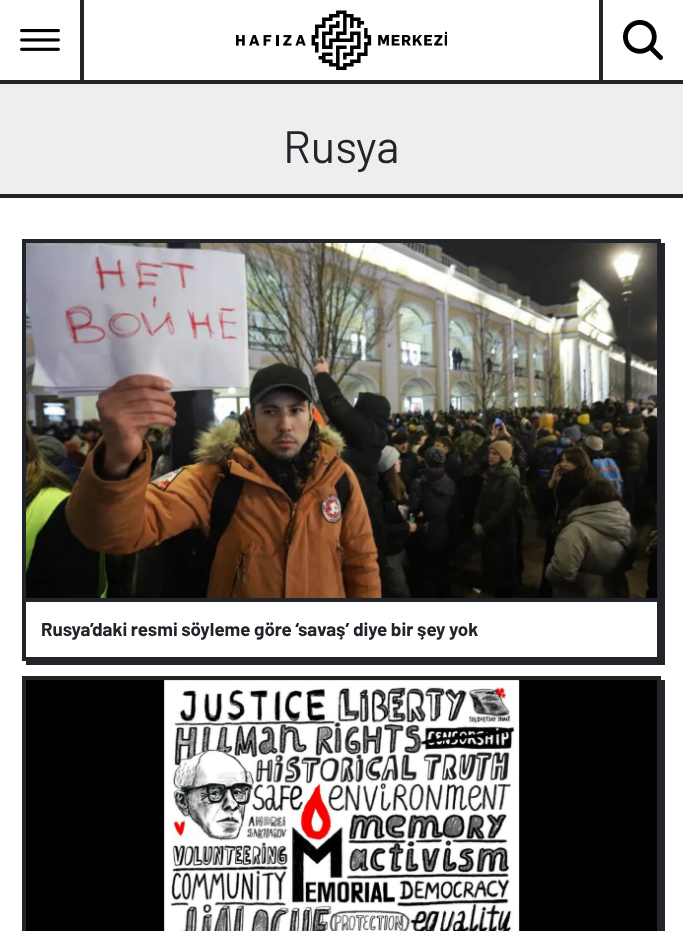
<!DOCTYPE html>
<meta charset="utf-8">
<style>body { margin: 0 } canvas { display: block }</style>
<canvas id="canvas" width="683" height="931"></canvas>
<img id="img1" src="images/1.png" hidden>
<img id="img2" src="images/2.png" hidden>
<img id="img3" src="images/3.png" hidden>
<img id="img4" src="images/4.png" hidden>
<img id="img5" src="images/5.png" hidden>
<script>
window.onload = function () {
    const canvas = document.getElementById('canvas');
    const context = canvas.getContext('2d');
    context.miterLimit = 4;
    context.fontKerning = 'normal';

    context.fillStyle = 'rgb(255, 255, 255)';
    context.fillRect(0, 0, 683, 931);
    context.strokeStyle = 'rgb(33, 37, 41)';
    context.lineWidth = 4;
    context.strokeRect(-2, -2, 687, 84);
    context.strokeRect(-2, -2, 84, 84);
    context.drawImage(document.getElementById('img1'), 20, 29, 40, 22);
    context.drawImage(document.getElementById('img2'), 236, 10, 211, 61);
    context.strokeRect(601, -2, 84, 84);
    context.drawImage(document.getElementById('img3'), 623, 20, 40, 40);
    context.fillStyle = 'rgb(238, 238, 238)';
    context.fillRect(0, 84, 683, 110);
    context.fillStyle = 'rgb(33, 37, 41)';
    context.fillRect(0, 194, 683, 4);
    context.beginPath();
    context.moveTo(665, 243);
    context.lineTo(657, 243);
    context.lineTo(657, 657);
    context.lineTo(26, 657);
    context.lineTo(26, 665);
    context.lineTo(665, 665);
    context.closePath();
    context.fill();
    context.strokeRect(24, 241, 635, 418);
    context.drawImage(document.getElementById('img4'), 26, 243, 631, 355);
    context.fillRect(26, 598, 631, 4);
    context.beginPath();
    context.moveTo(665, 680);
    context.lineTo(657, 680);
    context.lineTo(657, 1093);
    context.lineTo(26, 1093);
    context.lineTo(26, 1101);
    context.lineTo(665, 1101);
    context.closePath();
    context.fill();
    context.strokeRect(24, 678, 635, 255);
    context.drawImage(document.getElementById('img5'), 26, 680, 631, 251);
    context.font = '45.5px Barlow';
    context.fillText('Rusya', 283, 163);
    context.wordSpacing = '-0.25px';
    context.font = 'bold 18.75px Barlow';
    context.fillText('Rusya’daki resmi söyleme göre ‘savaş’ diye bir şey yok', 41, 636);
};
</script>
